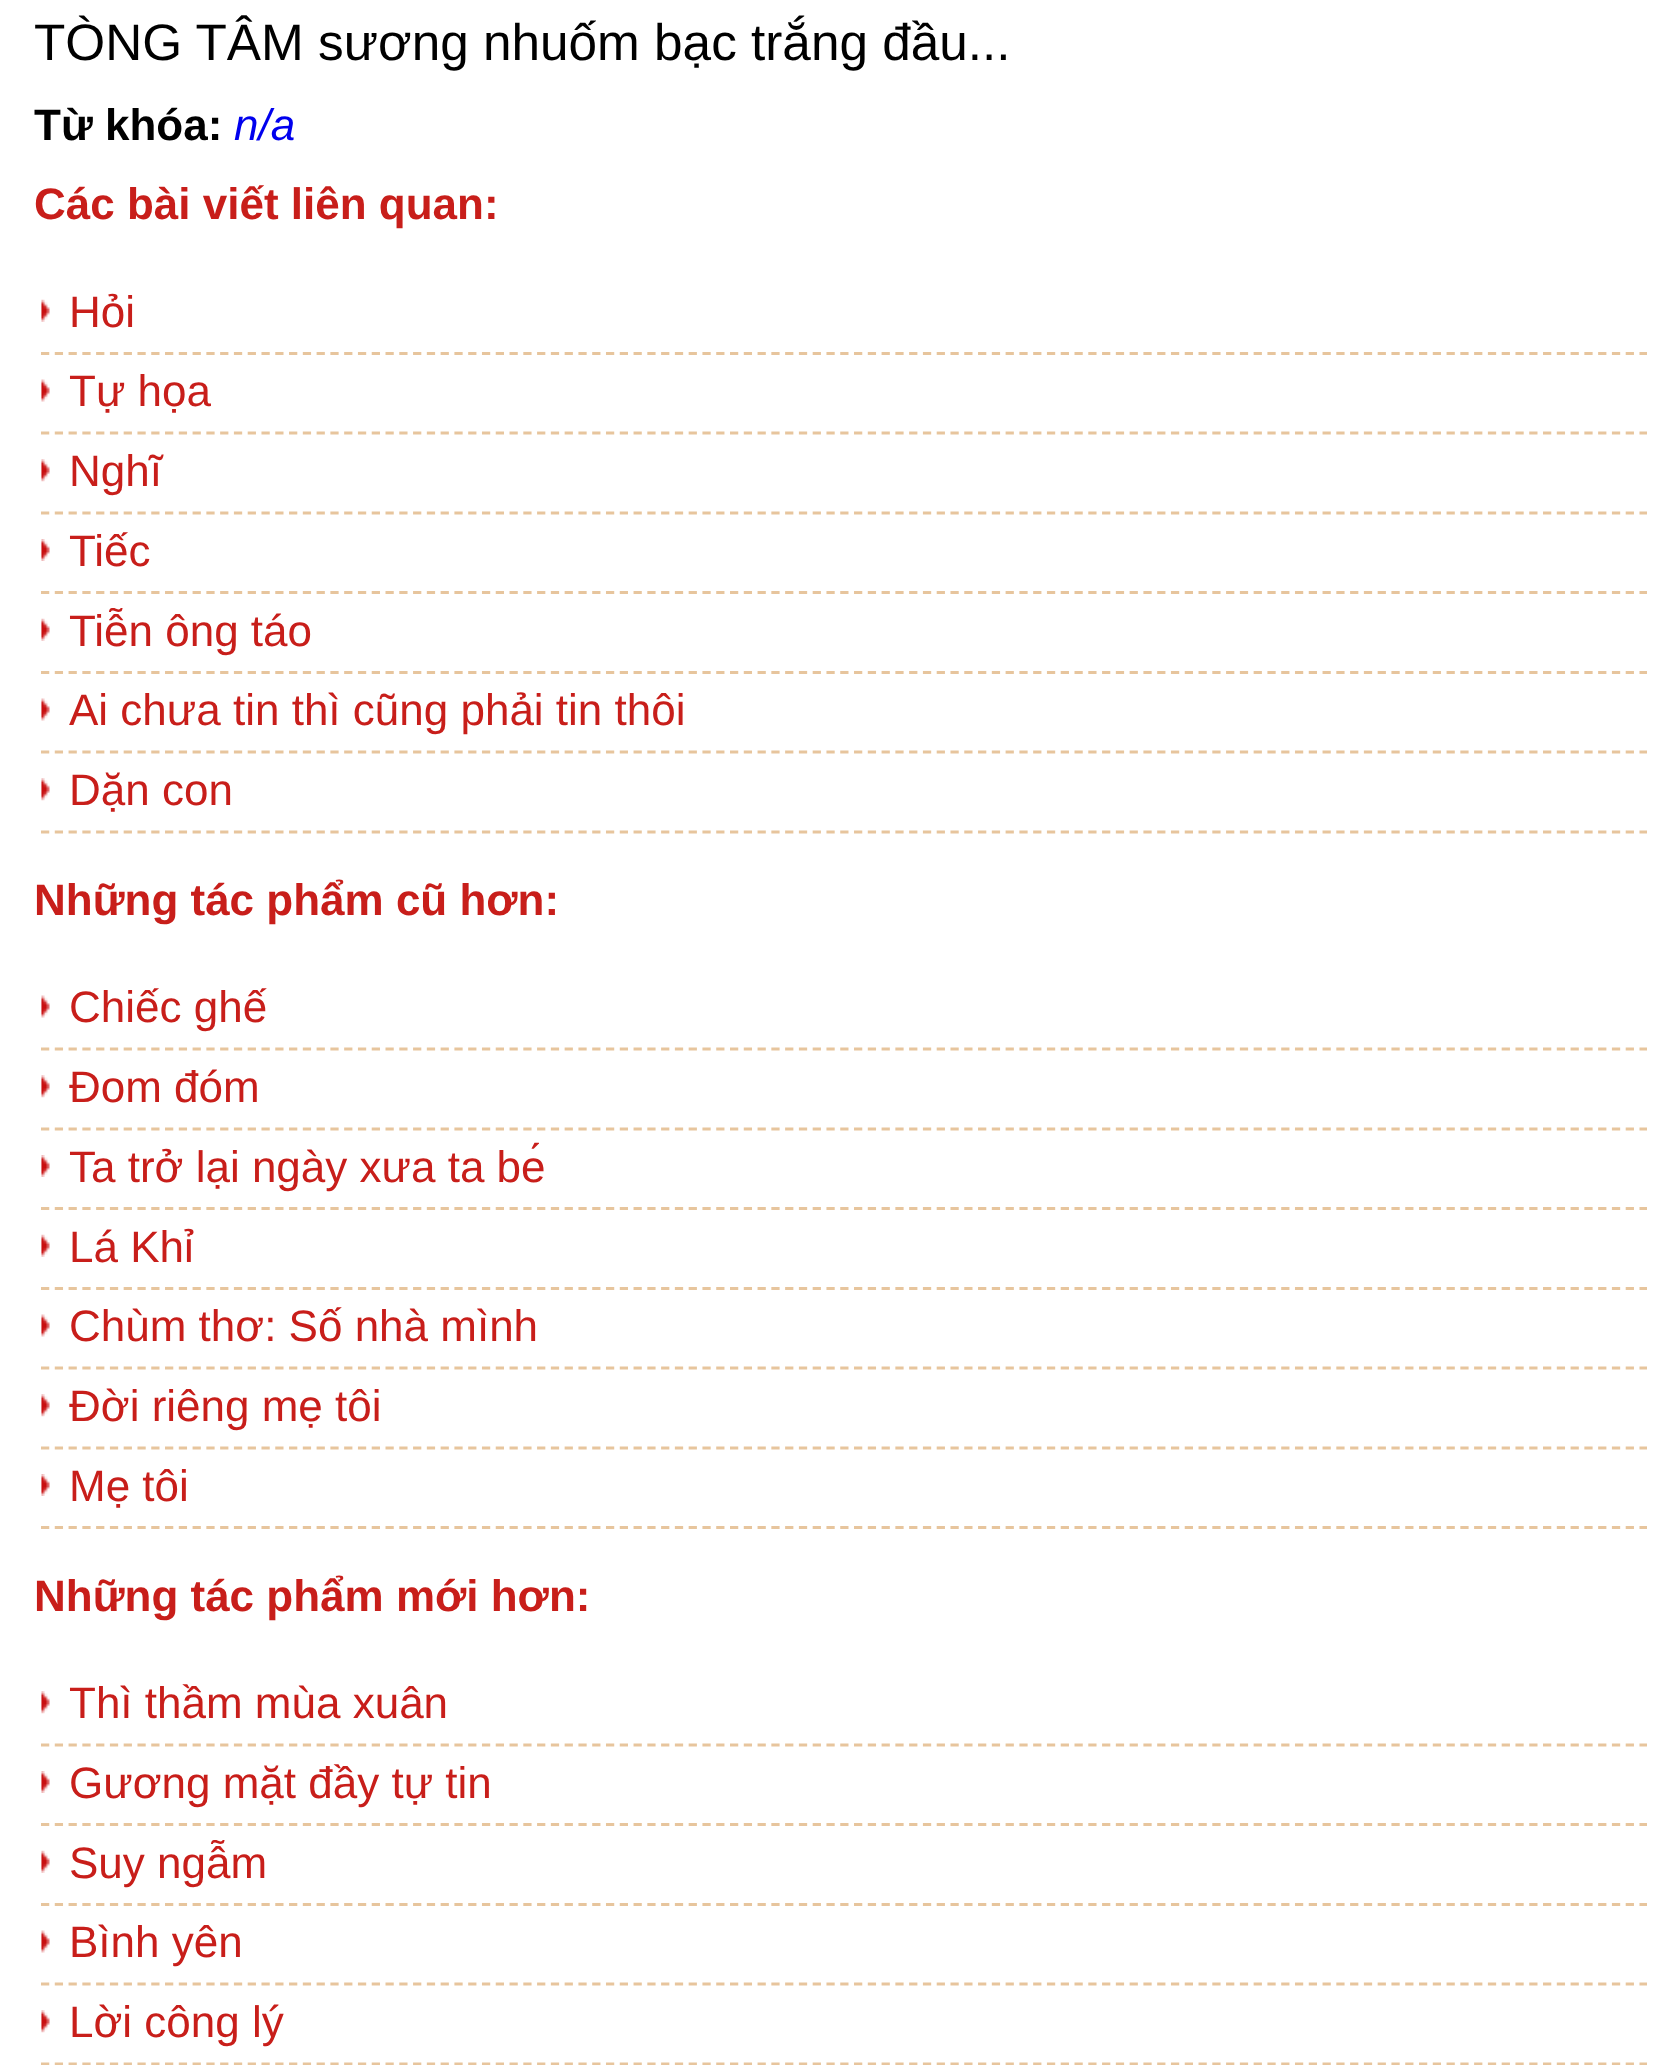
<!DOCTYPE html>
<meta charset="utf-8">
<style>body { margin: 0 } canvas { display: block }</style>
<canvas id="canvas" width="1678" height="2065"></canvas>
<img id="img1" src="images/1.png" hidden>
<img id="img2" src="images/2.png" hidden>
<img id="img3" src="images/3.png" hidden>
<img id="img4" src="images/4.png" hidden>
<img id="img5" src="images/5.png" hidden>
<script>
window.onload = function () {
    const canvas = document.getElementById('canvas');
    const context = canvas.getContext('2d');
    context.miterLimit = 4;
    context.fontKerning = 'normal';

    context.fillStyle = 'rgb(255, 255, 255)';
    context.fillRect(0, 0, 1678, 2065);
    context.drawImage(document.getElementById('img1'), 41, 299, 9, 23);
    context.beginPath();
    context.moveTo(41, 353.5);
    context.lineTo(1647, 353.5);
    context.strokeStyle = 'rgb(231, 197, 157)';
    context.lineWidth = 2.8;
    context.setLineDash([8.25, 5.53]);
    context.stroke();
    context.drawImage(document.getElementById('img2'), 41, 379, 9, 23);
    context.beginPath();
    context.moveTo(41, 433);
    context.lineTo(1647, 433);
    context.stroke();
    context.drawImage(document.getElementById('img3'), 41, 459, 9, 23);
    context.beginPath();
    context.moveTo(41, 513);
    context.lineTo(1647, 513);
    context.stroke();
    context.drawImage(document.getElementById('img4'), 41, 539, 9, 22);
    context.beginPath();
    context.moveTo(41, 592.5);
    context.lineTo(1647, 592.5);
    context.stroke();
    context.drawImage(document.getElementById('img1'), 41, 618, 9, 23);
    context.beginPath();
    context.moveTo(41, 672.5);
    context.lineTo(1647, 672.5);
    context.stroke();
    context.drawImage(document.getElementById('img2'), 41, 698, 9, 23);
    context.beginPath();
    context.moveTo(41, 752);
    context.lineTo(1647, 752);
    context.stroke();
    context.drawImage(document.getElementById('img3'), 41, 778, 9, 23);
    context.beginPath();
    context.moveTo(41, 832);
    context.lineTo(1647, 832);
    context.stroke();
    context.drawImage(document.getElementById('img2'), 41, 995, 9, 23);
    context.beginPath();
    context.moveTo(41, 1049);
    context.lineTo(1647, 1049);
    context.stroke();
    context.drawImage(document.getElementById('img3'), 41, 1075, 9, 23);
    context.beginPath();
    context.moveTo(41, 1129);
    context.lineTo(1647, 1129);
    context.stroke();
    context.drawImage(document.getElementById('img4'), 41, 1155, 9, 22);
    context.beginPath();
    context.moveTo(41, 1208.5);
    context.lineTo(1647, 1208.5);
    context.stroke();
    context.drawImage(document.getElementById('img1'), 41, 1234, 9, 23);
    context.beginPath();
    context.moveTo(41, 1288.5);
    context.lineTo(1647, 1288.5);
    context.stroke();
    context.drawImage(document.getElementById('img2'), 41, 1314, 9, 23);
    context.beginPath();
    context.moveTo(41, 1368);
    context.lineTo(1647, 1368);
    context.stroke();
    context.drawImage(document.getElementById('img3'), 41, 1394, 9, 23);
    context.beginPath();
    context.moveTo(41, 1448);
    context.lineTo(1647, 1448);
    context.stroke();
    context.drawImage(document.getElementById('img4'), 41, 1474, 9, 22);
    context.beginPath();
    context.moveTo(41, 1527.5);
    context.lineTo(1647, 1527.5);
    context.stroke();
    context.drawImage(document.getElementById('img3'), 41, 1691, 9, 23);
    context.beginPath();
    context.moveTo(41, 1745);
    context.lineTo(1647, 1745);
    context.stroke();
    context.drawImage(document.getElementById('img4'), 41, 1771, 9, 22);
    context.beginPath();
    context.moveTo(41, 1824.5);
    context.lineTo(1647, 1824.5);
    context.stroke();
    context.drawImage(document.getElementById('img1'), 41, 1850, 9, 23);
    context.beginPath();
    context.moveTo(41, 1904.5);
    context.lineTo(1647, 1904.5);
    context.stroke();
    context.drawImage(document.getElementById('img2'), 41, 1930, 9, 23);
    context.beginPath();
    context.moveTo(41, 1984);
    context.lineTo(1647, 1984);
    context.stroke();
    context.drawImage(document.getElementById('img5'), 41, 2010, 9, 23);
    context.beginPath();
    context.moveTo(41, 2064);
    context.lineTo(1647, 2064);
    context.stroke();
    context.font = '51.3px Liberation Sans';
    context.fillStyle = 'rgb(0, 0, 0)';
    context.fillText('TÒNG TÂM sương nhuốm bạc trắng đầu...', 34, 60);
    context.font = 'bold 44px Liberation Sans';
    context.fillText('Từ khóa:', 34, 140);
    context.font = 'italic 44px Liberation Sans';
    context.fillStyle = 'rgb(0, 0, 238)';
    context.fillText('n/a', 234, 140);
    context.font = 'bold 44px Liberation Sans';
    context.fillStyle = 'rgb(200, 30, 26)';
    context.fillText('Các bài viết liên quan:', 34, 219);
    context.font = '44px Liberation Sans';
    context.fillText('Hỏi', 69, 327);
    context.fillText('Tự họa', 69, 406);
    context.fillText('Nghĩ', 69, 486);
    context.fillText('Tiếc', 69, 566);
    context.save();
    context.beginPath();
    context.rect(41, 608, 1606, 49);
    context.clip();
    context.fillText('Tiễn ông táo', 69, 646);
    context.restore();
    context.fillText('Ai chưa tin thì cũng phải tin thôi', 69, 725);
    context.fillText('Dặn con', 69, 805);
    context.font = 'bold 44px Liberation Sans';
    context.fillText('Những tác phẩm cũ hơn:', 34, 915);
    context.font = '44px Liberation Sans';
    context.fillText('Chiếc ghế', 69, 1022);
    context.fillText('Đom đóm', 69, 1102);
    context.fillText('Ta trở lại ngày xưa ta bé', 69, 1182);
    context.fillText('Lá Khỉ', 69, 1262);
    context.fillText('Chùm thơ: Số nhà mình', 69, 1341);
    context.fillText('Đời riêng mẹ tôi', 69, 1421);
    context.fillText('Mẹ tôi', 69, 1501);
    context.font = 'bold 44px Liberation Sans';
    context.fillText('Những tác phẩm mới hơn:', 34, 1611);
    context.font = '44px Liberation Sans';
    context.fillText('Thì thầm mùa xuân', 69, 1718);
    context.fillText('Gương mặt đầy tự tin', 69, 1798);
    context.save();
    context.beginPath();
    context.rect(41, 1840, 1606, 49);
    context.clip();
    context.fillText('Suy ngẫm', 69, 1878);
    context.restore();
    context.fillText('Bình yên', 69, 1957);
    context.fillText('Lời công lý', 69, 2037);
};
</script>
